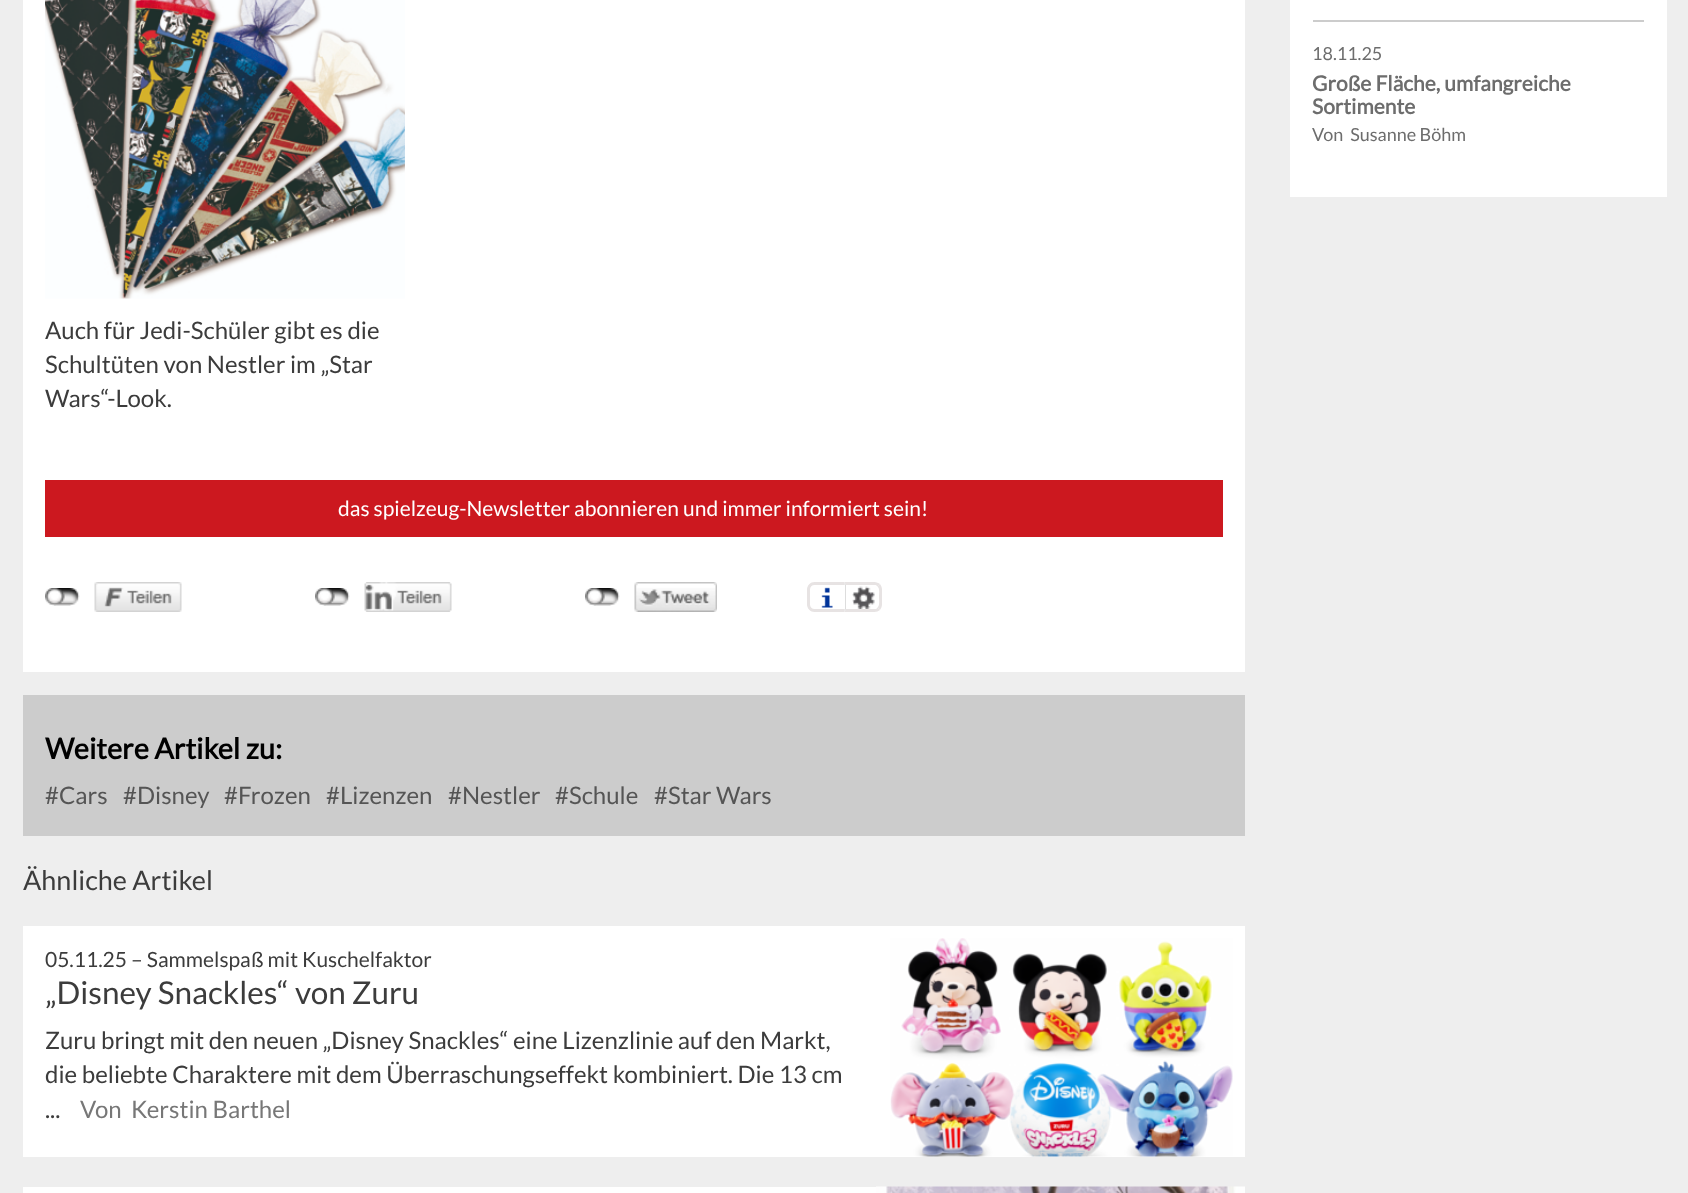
<!DOCTYPE html>
<meta charset="utf-8">
<style>body { margin: 0 } canvas { display: block }</style>
<canvas id="canvas" width="1688" height="1193"></canvas>
<img id="img1" src="images/1.png" hidden>
<img id="img2" src="images/2.png" hidden>
<img id="img3" src="images/3.png" hidden>
<img id="img4" src="images/4.png" hidden>
<img id="img5" src="images/5.png" hidden>
<img id="img6" src="images/6.png" hidden>
<img id="img7" src="images/8.png" hidden>
<img id="img8" src="images/7.png" hidden>
<img id="img9" src="images/9.png" hidden>
<img id="img10" src="images/10.png" hidden>
<script>
window.onload = function () {
    const canvas = document.getElementById('canvas');
    const context = canvas.getContext('2d');
    context.miterLimit = 4;
    context.fontKerning = 'normal';

    context.fillStyle = 'rgb(238, 238, 238)';
    context.fillRect(0, 0, 1688, 1193);
    context.fillStyle = 'rgb(255, 255, 255)';
    context.fillRect(1290, 0, 377, 197);
    context.fillStyle = 'rgb(204, 204, 204)';
    context.fillRect(1313, 20, 331, 2);
    context.fillStyle = 'rgb(255, 255, 255)';
    context.fillRect(23, 0, 1222, 672);
    context.drawImage(document.getElementById('img1'), 45, 0, 360, 299);
    context.fillStyle = 'rgb(204, 24, 31)';
    context.fillRect(45, 480, 1178, 57);
    context.drawImage(document.getElementById('img2'), 45, 588, 35, 18);
    context.drawImage(document.getElementById('img3'), 94, 582, 88, 30);
    context.drawImage(document.getElementById('img4'), 315, 588, 35, 18);
    context.drawImage(document.getElementById('img5'), 364, 582, 88, 30);
    context.drawImage(document.getElementById('img4'), 585, 588, 35, 18);
    context.drawImage(document.getElementById('img6'), 634, 582, 83, 30);
    context.drawImage(document.getElementById('img7'), 852, 586, 23, 23);
    context.fillStyle = 'rgb(231, 227, 227)';
    context.beginPath();
    context.moveTo(844.5, 582);
    context.lineTo(846, 585);
    context.lineTo(874.5, 585);
    context.bezierCurveTo(876, 585, 877, 585.5, 877.5, 586.5);
    context.lineTo(880, 584);
    context.bezierCurveTo(878.5, 583, 876.5, 582, 874.5, 582);
    context.closePath();
    context.fill();
    context.beginPath();
    context.moveTo(882, 604.5);
    context.lineTo(882, 589.5);
    context.bezierCurveTo(882, 587.5, 881, 585.5, 880, 584);
    context.lineTo(877.5, 586.5);
    context.bezierCurveTo(880, 588.5, 879, 594, 879, 597);
    context.bezierCurveTo(879, 600, 880, 605.5, 877.5, 607.5);
    context.lineTo(880, 610);
    context.bezierCurveTo(881, 608.5, 882, 606.5, 882, 604.5);
    context.closePath();
    context.fill();
    context.beginPath();
    context.moveTo(874.5, 612);
    context.bezierCurveTo(876.5, 612, 878.5, 611, 880, 610);
    context.lineTo(877.5, 607.5);
    context.bezierCurveTo(877, 608.5, 876, 609, 874.5, 609);
    context.lineTo(846, 609);
    context.lineTo(844.5, 612);
    context.closePath();
    context.fill();
    context.fillStyle = 'rgb(221, 221, 221)';
    context.beginPath();
    context.moveTo(844.5, 582);
    context.lineTo(844.5, 612);
    context.lineTo(846, 609);
    context.lineTo(846, 585);
    context.closePath();
    context.fill();
    context.fillStyle = 'rgb(255, 255, 255)';
    context.beginPath();
    context.roundRect(810, 585, 35, 24, [5, 0, 0, 5]);
    context.fill();
    context.drawImage(document.getElementById('img8'), 821, 587, 12, 21);
    context.fillStyle = 'rgb(231, 227, 227)';
    context.beginPath();
    context.moveTo(814.5, 582);
    context.lineTo(844.5, 582);
    context.lineTo(844.5, 612);
    context.lineTo(814.5, 612);
    context.bezierCurveTo(810.5, 612, 807, 608.5, 807, 604.5);
    context.lineTo(807, 589.5);
    context.bezierCurveTo(807, 585.5, 810.5, 582, 814.5, 582);
    context.closePath();
    context.moveTo(814.5, 585);
    context.lineTo(844.5, 585);
    context.lineTo(844.5, 609);
    context.lineTo(814.5, 609);
    context.bezierCurveTo(812, 609, 810, 607, 810, 604.5);
    context.lineTo(810, 589.5);
    context.bezierCurveTo(810, 587, 812, 585, 814.5, 585);
    context.closePath();
    context.fill('evenodd');
    context.fillStyle = 'rgb(204, 204, 204)';
    context.fillRect(23, 695, 1222, 141);
    context.fillStyle = 'rgb(255, 255, 255)';
    context.fillRect(23, 926, 1222, 231);
    context.drawImage(document.getElementById('img9'), 890, 938, 343, 219);
    context.fillRect(23, 1187, 853, 6);
    context.drawImage(document.getElementById('img10'), 876, 1186, 369, 7);
    context.font = '18px Lato';
    context.fillStyle = 'rgb(109, 109, 109)';
    context.fillText('18.11.25', 1312, 60);
    context.font = 'bold 21px Lato';
    context.fillText('Große Fläche, umfangreiche', 1312, 91);
    context.fillText('Sortimente', 1312, 114);
    context.font = '18px Lato';
    context.fillText('Von  Susanne Böhm', 1312, 141);
    context.font = '24px Lato';
    context.fillStyle = 'rgb(60, 60, 60)';
    context.fillText('Auch für Jedi-Schüler gibt es die', 45, 339);
    context.fillText('Schultüten von Nestler im „Star', 45, 373);
    context.fillText('Wars“-Look.', 45, 407);
    context.font = '21px Lato';
    context.fillStyle = 'rgb(255, 255, 255)';
    context.fillText('das spielzeug-Newsletter abonnieren und immer informiert sein!', 338, 516);
    context.font = 'bold 28.75px Lato';
    context.fillStyle = 'rgb(0, 0, 0)';
    context.fillText('Weitere Artikel zu:', 45, 759);
    context.font = '24px Lato';
    context.fillStyle = 'rgb(85, 85, 85)';
    context.fillText('#Cars', 45, 804);
    context.fillText('#Disney', 123, 804);
    context.fillText('#Frozen', 224, 804);
    context.fillText('#Lizenzen', 326, 804);
    context.fillText('#Nestler', 448, 804);
    context.fillText('#Schule', 555, 804);
    context.fillText('#Star Wars', 654, 804);
    context.font = '27px Lato';
    context.fillStyle = 'rgb(60, 60, 60)';
    context.fillText('Ähnliche Artikel', 23, 890);
    context.font = '21px Lato';
    context.fillText('05.11.25 – Sammelspaß mit Kuschelfaktor', 45, 967);
    context.font = '31.5px Lato';
    context.fillText('„Disney Snackles“ von Zuru', 45, 1004);
    context.font = '24px Lato';
    context.fillText('Zuru bringt mit den neuen „Disney Snackles“ eine Lizenzlinie auf den Markt,', 45, 1049);
    context.fillText('die beliebte Charaktere mit dem Überraschungseffekt kombiniert. Die 13 cm', 45, 1083);
    context.fillText('...', 45, 1118);
    context.fillStyle = 'rgb(119, 119, 119)';
    context.fillText('Von  Kerstin Barthel', 80, 1118);
};
</script>
